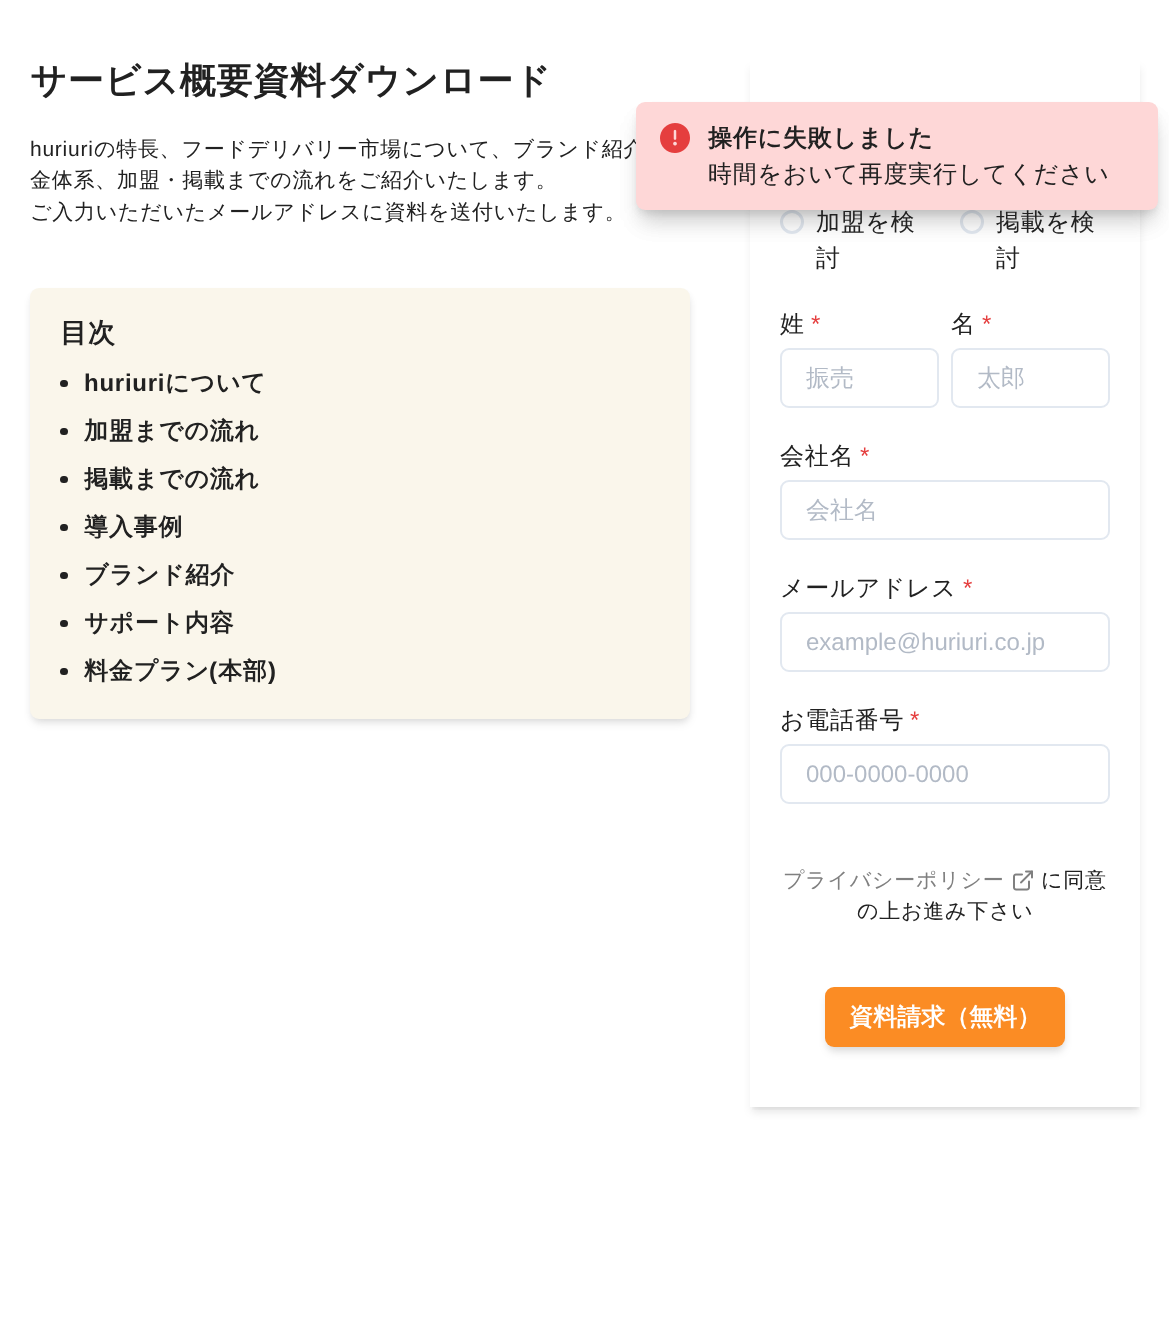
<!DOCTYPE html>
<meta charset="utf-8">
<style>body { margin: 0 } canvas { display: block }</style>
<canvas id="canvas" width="1169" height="1324"></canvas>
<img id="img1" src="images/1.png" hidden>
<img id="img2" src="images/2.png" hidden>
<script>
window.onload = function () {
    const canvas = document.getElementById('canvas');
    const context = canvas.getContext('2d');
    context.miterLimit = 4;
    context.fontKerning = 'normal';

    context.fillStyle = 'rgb(255, 255, 255)';
    context.fillRect(0, 0, 1169, 1324);
    context.fillStyle = 'rgba(0, 0, 0, 0.06)';
    context.filter = 'blur(3px)';
    context.beginPath();
    context.roundRect(32, 293, 657, 427, 8);
    context.fill();
    context.filter = 'none';
    context.fillStyle = 'rgba(0, 0, 0, 0.1)';
    context.filter = 'blur(4.5px)';
    context.beginPath();
    context.roundRect(32, 296, 657, 427, 8);
    context.fill();
    context.filter = 'none';
    context.fillStyle = 'rgb(250, 246, 235)';
    context.beginPath();
    context.roundRect(30, 288, 660, 431, 9);
    context.fill();
    context.fillStyle = 'rgb(33, 33, 33)';
    context.beginPath();
    context.roundRect(60, 380, 8, 7, 3.5);
    context.fill();
    context.beginPath();
    context.roundRect(60, 428, 8, 7, 3.5);
    context.fill();
    context.beginPath();
    context.roundRect(60, 476, 8, 7, 3.5);
    context.fill();
    context.beginPath();
    context.roundRect(60, 524, 8, 7, 3.5);
    context.fill();
    context.beginPath();
    context.roundRect(60, 572, 8, 7, 3.5);
    context.fill();
    context.beginPath();
    context.roundRect(60, 620, 8, 7, 3.5);
    context.fill();
    context.beginPath();
    context.roundRect(60, 668, 8, 7, 3.5);
    context.fill();
    context.save();
    context.beginPath();
    context.rect(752, 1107, 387, 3);
    context.clip();
    context.fillStyle = 'rgba(0, 0, 0, 0.06)';
    context.filter = 'blur(3px)';
    context.beginPath();
    context.rect(752, 65, 387, 1044);
    context.fill();
    context.filter = 'none';
    context.restore();
    context.save();
    context.beginPath();
    context.moveTo(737, 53);
    context.lineTo(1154, 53);
    context.lineTo(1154, 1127);
    context.lineTo(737, 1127);
    context.closePath();
    context.moveTo(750, 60);
    context.lineTo(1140, 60);
    context.lineTo(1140, 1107);
    context.lineTo(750, 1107);
    context.closePath();
    context.clip('evenodd');
    context.fillStyle = 'rgba(0, 0, 0, 0.1)';
    context.filter = 'blur(4.5px)';
    context.beginPath();
    context.rect(752, 68, 387, 1044);
    context.fill();
    context.filter = 'none';
    context.restore();
    context.beginPath();
    context.arc(792, 222, 10.5, 0, 2 * Math.PI);
    context.strokeStyle = 'rgb(226, 232, 240)';
    context.lineWidth = 3;
    context.stroke();
    context.beginPath();
    context.arc(972, 222, 10.5, 0, 2 * Math.PI);
    context.stroke();
    context.beginPath();
    context.roundRect(781, 349, 157, 58, 8);
    context.lineWidth = 2;
    context.stroke();
    context.beginPath();
    context.roundRect(952, 349, 157, 58, 8);
    context.stroke();
    context.beginPath();
    context.roundRect(781, 481, 328, 58, 8);
    context.stroke();
    context.beginPath();
    context.roundRect(781, 613, 328, 58, 8);
    context.stroke();
    context.beginPath();
    context.roundRect(781, 745, 328, 58, 8);
    context.stroke();
    context.drawImage(document.getElementById('img1'), 1013, 870, 20, 21);
    context.fillStyle = 'rgba(0, 0, 0, 0.06)';
    context.filter = 'blur(3px)';
    context.beginPath();
    context.roundRect(827, 992, 237, 57, 8);
    context.fill();
    context.filter = 'none';
    context.fillStyle = 'rgba(0, 0, 0, 0.1)';
    context.filter = 'blur(4.5px)';
    context.beginPath();
    context.roundRect(827, 995, 237, 57, 8);
    context.fill();
    context.filter = 'none';
    context.fillStyle = 'rgb(251, 140, 36)';
    context.beginPath();
    context.roundRect(825, 987, 240, 60, 9);
    context.fill();
    context.fillStyle = 'rgba(0, 0, 0, 0.05)';
    context.filter = 'blur(4.5px)';
    context.beginPath();
    context.roundRect(639, 111, 516, 102, 6);
    context.fill();
    context.filter = 'none';
    context.fillStyle = 'rgba(0, 0, 0, 0.1)';
    context.filter = 'blur(11px)';
    context.beginPath();
    context.roundRect(641, 122, 513, 99, 5);
    context.fill();
    context.filter = 'none';
    context.fillStyle = 'rgba(0, 0, 0, 0.05)';
    context.filter = 'blur(4.5px)';
    context.beginPath();
    context.roundRect(639, 111, 516, 102, 6);
    context.fill();
    context.filter = 'none';
    context.fillStyle = 'rgba(0, 0, 0, 0.1)';
    context.filter = 'blur(11px)';
    context.beginPath();
    context.roundRect(641, 122, 513, 99, 5);
    context.fill();
    context.filter = 'none';
    context.letterSpacing = '0.75px';
    context.font = 'bold 36px WenQuanYi Zen Hei';
    context.fillStyle = 'rgb(33, 33, 33)';
    context.fillText('サービス概要資料ダウンロード', 30, 93);
    context.font = '21px Liberation Sans';
    context.fillText('huriuri', 30, 156);
    context.font = '500 21px WenQuanYi Zen Hei';
    context.fillText('の特長、フードデリバリー市場について、ブランド紹介', 94, 156);
    context.fillText('金体系、加盟・掲載までの流れをご紹介いたします。', 30, 187);
    context.fillText('ご入力いただいたメールアドレスに資料を送付いたします。', 30, 219);
    context.font = 'bold 27px WenQuanYi Zen Hei';
    context.fillText('目次', 60, 342);
    context.font = 'bold 24px Liberation Sans';
    context.fillText('huriuri', 84, 391);
    context.font = 'bold 24px WenQuanYi Zen Hei';
    context.fillText('について', 165, 391);
    context.fillText('加盟までの流れ', 84, 439);
    context.fillText('掲載までの流れ', 84, 487);
    context.fillText('導入事例', 84, 535);
    context.fillText('ブランド紹介', 84, 583);
    context.fillText('サポート内容', 84, 631);
    context.fillText('料金プラン', 84, 679);
    context.font = 'bold 24px Liberation Sans';
    context.fillText('(', 209, 679);
    context.font = 'bold 24px WenQuanYi Zen Hei';
    context.fillText('本部', 218, 679);
    context.font = 'bold 24px Liberation Sans';
    context.fillText(')', 268, 679);
    context.font = '500 24px WenQuanYi Zen Hei';
    context.fillText('加盟を検', 816, 230);
    context.fillText('討', 816, 266);
    context.fillText('掲載を検', 996, 230);
    context.fillText('討', 996, 266);
    context.fillText('姓', 780, 332);
    context.font = '24px Liberation Sans';
    context.fillStyle = 'rgb(229, 62, 62)';
    context.fillText('*', 811, 332);
    context.letterSpacing = '0px';
    context.font = '500 24px WenQuanYi Zen Hei';
    context.fillStyle = 'rgb(178, 186, 198)';
    context.fillText('振売', 806, 386);
    context.letterSpacing = '0.75px';
    context.fillStyle = 'rgb(33, 33, 33)';
    context.fillText('名', 951, 332);
    context.font = '24px Liberation Sans';
    context.fillStyle = 'rgb(229, 62, 62)';
    context.fillText('*', 982, 332);
    context.letterSpacing = '0px';
    context.font = '500 24px WenQuanYi Zen Hei';
    context.fillStyle = 'rgb(178, 186, 198)';
    context.fillText('太郎', 977, 386);
    context.letterSpacing = '0.75px';
    context.fillStyle = 'rgb(33, 33, 33)';
    context.fillText('会社名', 780, 464);
    context.font = '24px Liberation Sans';
    context.fillStyle = 'rgb(229, 62, 62)';
    context.fillText('*', 860, 464);
    context.letterSpacing = '0px';
    context.font = '500 24px WenQuanYi Zen Hei';
    context.fillStyle = 'rgb(178, 186, 198)';
    context.fillText('会社名', 806, 518);
    context.letterSpacing = '0.75px';
    context.fillStyle = 'rgb(33, 33, 33)';
    context.fillText('メールアドレス', 780, 596);
    context.font = '24px Liberation Sans';
    context.fillStyle = 'rgb(229, 62, 62)';
    context.fillText('*', 963, 596);
    context.letterSpacing = '0px';
    context.fillStyle = 'rgb(178, 186, 198)';
    context.fillText('example@huriuri.co.jp', 806, 650);
    context.letterSpacing = '0.75px';
    context.font = '500 24px WenQuanYi Zen Hei';
    context.fillStyle = 'rgb(33, 33, 33)';
    context.fillText('お電話番号', 780, 728);
    context.font = '24px Liberation Sans';
    context.fillStyle = 'rgb(229, 62, 62)';
    context.fillText('*', 910, 728);
    context.letterSpacing = '0px';
    context.fillStyle = 'rgb(178, 186, 198)';
    context.fillText('000-0000-0000', 806, 782);
    context.letterSpacing = '0.75px';
    context.font = '500 21px WenQuanYi Zen Hei';
    context.fillStyle = 'rgb(128, 128, 128)';
    context.fillText('プライバシーポリシー', 783, 887);
    context.fillStyle = 'rgb(33, 33, 33)';
    context.fillText('に同意', 1041, 887);
    context.fillText('の上お進み下さい', 857, 918);
    context.letterSpacing = '0px';
    context.font = 'bold 24px WenQuanYi Zen Hei';
    context.fillStyle = 'rgb(255, 255, 255)';
    context.fillText('資料請求（無料）', 849, 1025);
    context.fillStyle = 'rgb(254, 215, 215)';
    context.beginPath();
    context.roundRect(636, 102, 522, 108, 9);
    context.fill();
    context.drawImage(document.getElementById('img2'), 660, 123, 30, 30);
    context.letterSpacing = '0.75px';
    context.fillStyle = 'rgb(33, 33, 33)';
    context.fillText('操作に失敗しました', 708, 146);
    context.font = '500 24px WenQuanYi Zen Hei';
    context.fillText('時間をおいて再度実行してください', 708, 182);
};
</script>
